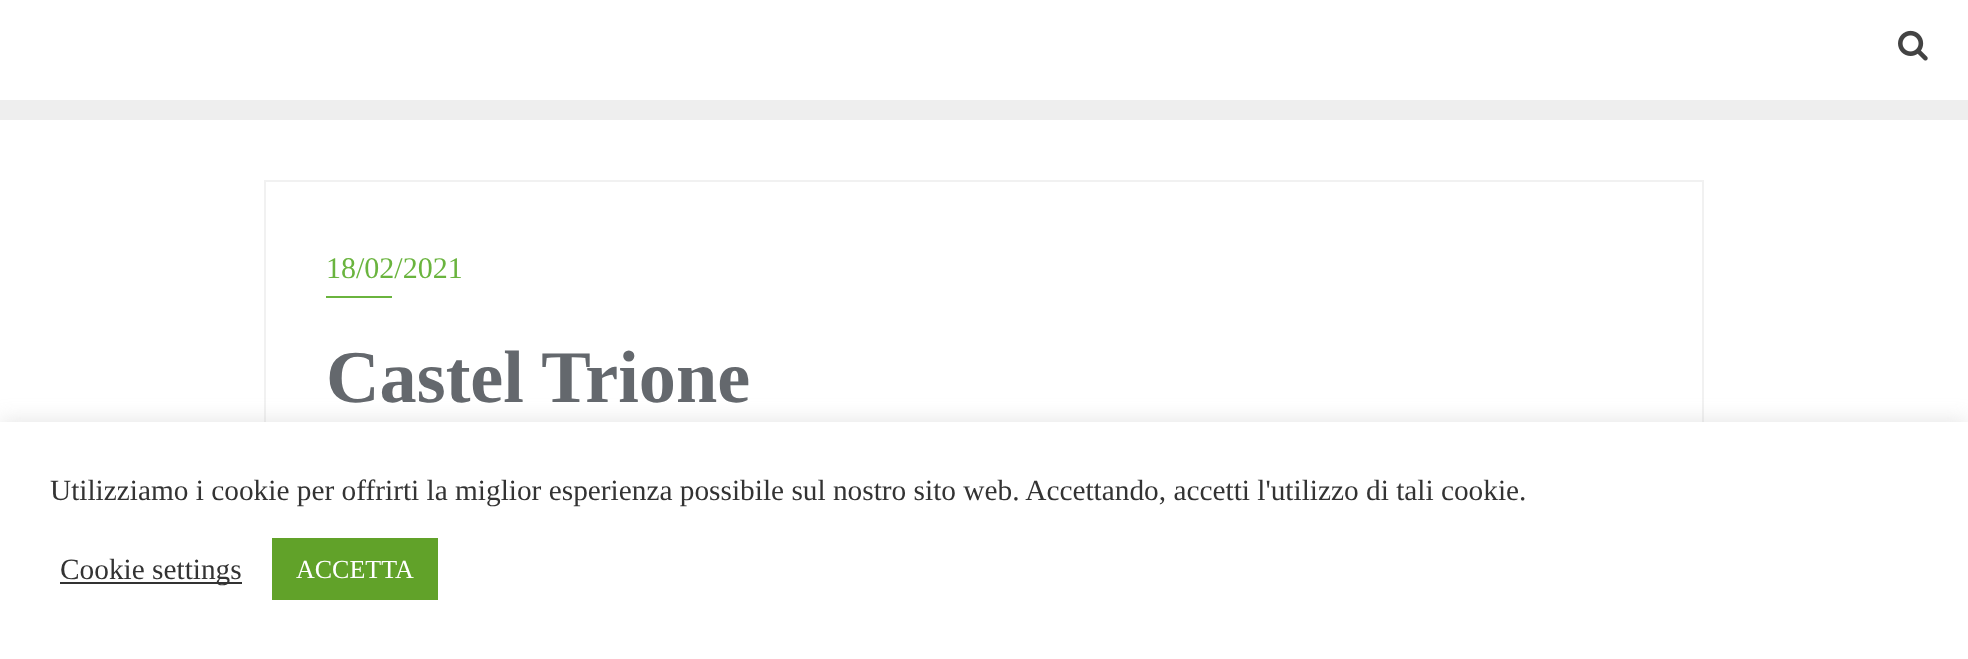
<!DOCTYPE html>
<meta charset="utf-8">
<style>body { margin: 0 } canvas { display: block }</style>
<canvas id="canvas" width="1968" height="659"></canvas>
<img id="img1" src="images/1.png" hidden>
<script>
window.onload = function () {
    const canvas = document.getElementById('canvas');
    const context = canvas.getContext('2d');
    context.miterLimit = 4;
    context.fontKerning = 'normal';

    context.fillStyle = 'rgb(255, 255, 255)';
    context.fillRect(0, 0, 1968, 659);
    context.fillStyle = 'rgb(238, 238, 238)';
    context.fillRect(0, 100, 1968, 20);
    context.drawImage(document.getElementById('img1'), 1898, 30, 30, 31);
    context.strokeStyle = 'rgb(241, 241, 241)';
    context.lineWidth = 2;
    context.strokeRect(265, 181, 1438, 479);
    context.fillStyle = 'rgb(106, 180, 62)';
    context.fillRect(326, 296, 66, 2);
    context.fillStyle = 'rgba(172, 171, 171, 0.3)';
    context.filter = 'blur(10px)';
    context.beginPath();
    context.rect(0, 420, 1968, 238);
    context.fill();
    context.filter = 'none';
    context.fillStyle = 'rgb(255, 255, 255)';
    context.fillRect(0, 422, 1968, 237);
    context.fillStyle = 'rgb(51, 51, 51)';
    context.fillRect(60, 582, 182, 2);
    context.fillStyle = 'rgb(97, 162, 41)';
    context.fillRect(272, 538, 166, 62);
    context.font = '30px Liberation Serif';
    context.fillStyle = 'rgb(106, 180, 62)';
    context.fillText('18/02/2021', 326, 278);
    context.font = 'bold 74.25px Liberation Serif';
    context.fillStyle = 'rgb(100, 104, 109)';
    context.fillText('Castel Trione', 326, 402);
    context.font = '29.33px Liberation Serif';
    context.fillStyle = 'rgb(51, 51, 51)';
    context.fillText('Utilizziamo i cookie per offrirti la miglior esperienza possibile sul nostro sito web. Accettando, accetti l\'utilizzo di tali cookie.', 50, 500);
    context.fillText('Cookie settings', 60, 579);
    context.font = '26px Liberation Serif';
    context.fillStyle = 'rgb(255, 255, 255)';
    context.fillText('ACCETTA', 296, 578);
};
</script>
